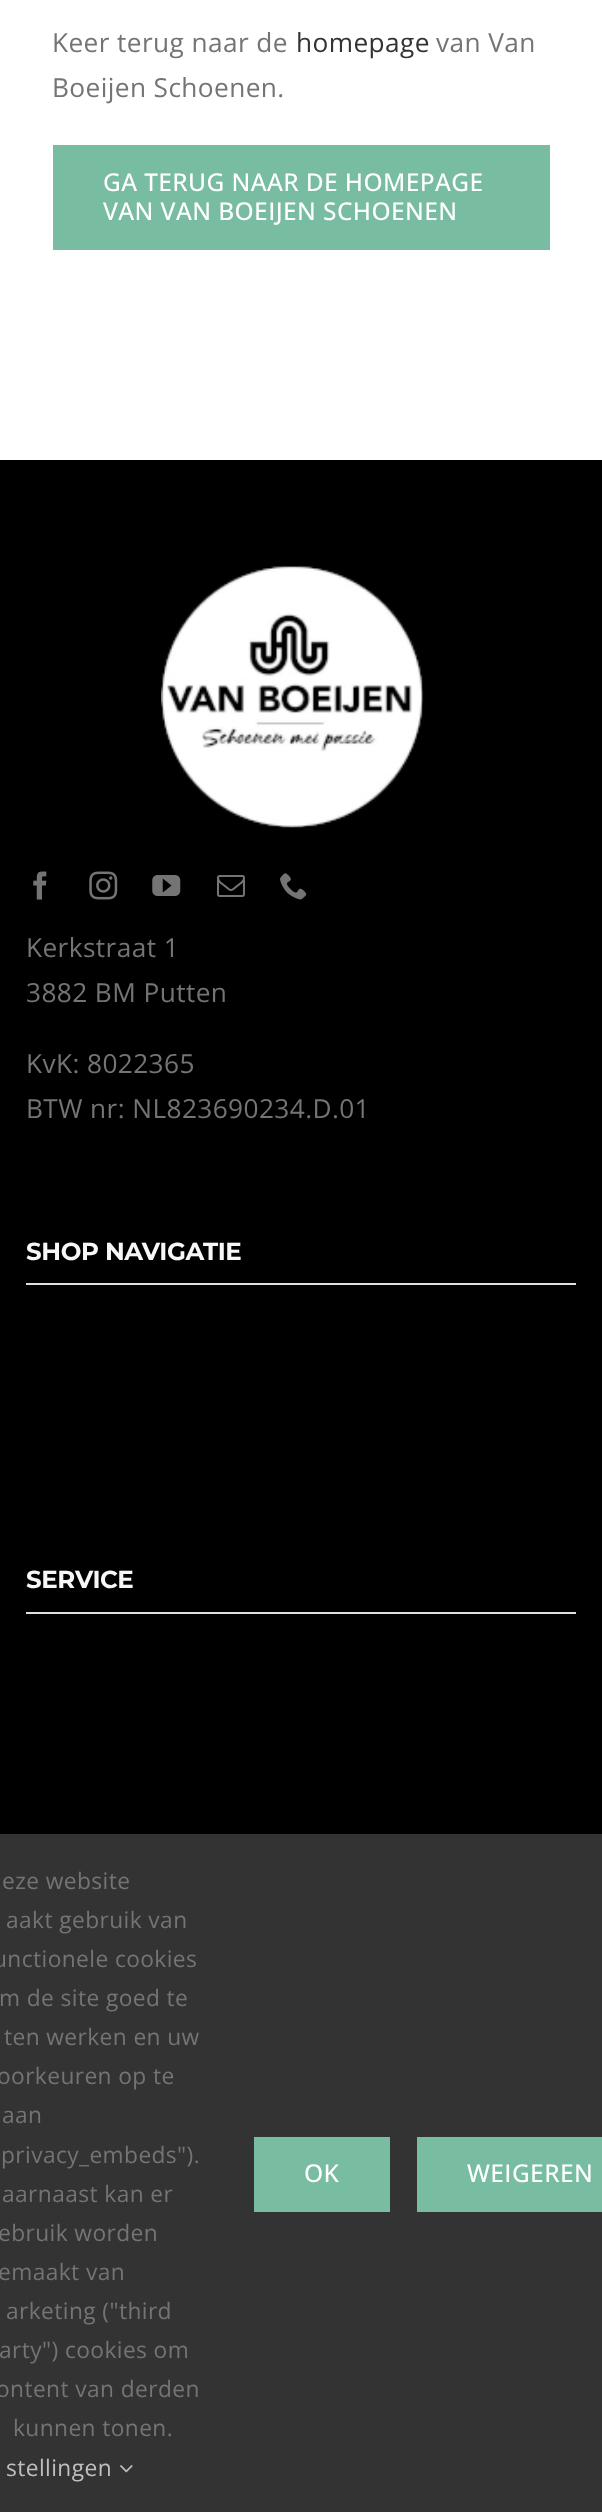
<!DOCTYPE html>
<meta charset="utf-8">
<style>body { margin: 0 } canvas { display: block }</style>
<canvas id="canvas" width="602" height="2512"></canvas>
<img id="img1" src="images/1.png" hidden>
<img id="img2" src="images/2.png" hidden>
<img id="img3" src="images/3.png" hidden>
<img id="img4" src="images/4.png" hidden>
<img id="img5" src="images/5.png" hidden>
<img id="img6" src="images/6.png" hidden>
<img id="img7" src="images/7.png" hidden>
<script>
window.onload = function () {
    const canvas = document.getElementById('canvas');
    const context = canvas.getContext('2d');
    context.miterLimit = 4;
    context.fontKerning = 'normal';

    context.fillStyle = 'rgb(255, 255, 255)';
    context.fillRect(0, 0, 602, 2512);
    context.fillStyle = 'rgb(120, 188, 161)';
    context.fillRect(53, 145, 497, 105);
    context.fillStyle = 'rgb(0, 0, 0)';
    context.fillRect(0, 460, 602, 1374);
    context.drawImage(document.getElementById('img1'), 161, 565, 263, 263);
    context.drawImage(document.getElementById('img2'), 33, 871, 14, 29);
    context.drawImage(document.getElementById('img3'), 89, 871, 29, 29);
    context.drawImage(document.getElementById('img4'), 152, 875, 29, 21);
    context.drawImage(document.getElementById('img5'), 217, 875, 28, 22);
    context.drawImage(document.getElementById('img6'), 280, 873, 27, 27);
    context.fillStyle = 'rgb(224, 222, 222)';
    context.fillRect(26, 1283, 550, 2);
    context.fillRect(26, 1612, 550, 2);
    context.fillStyle = 'rgb(51, 51, 51)';
    context.fillRect(0, 1834, 602, 678);
    context.drawImage(document.getElementById('img7'), 120, 2465, 13, 8);
    context.fillStyle = 'rgb(120, 188, 161)';
    context.fillRect(254, 2137, 136, 75);
    context.fillRect(417, 2137, 185, 75);
    context.letterSpacing = '0.4px';
    context.font = '26.25px Open Sans';
    context.fillStyle = 'rgb(116, 116, 116)';
    context.fillText('Keer terug naar de', 52, 52);
    context.fillStyle = 'rgb(51, 51, 51)';
    context.fillText('homepage', 296, 52);
    context.fillStyle = 'rgb(116, 116, 116)';
    context.fillText('van Van', 436, 52);
    context.fillText('Boeijen Schoenen.', 52, 97);
    context.font = '500 24.5px Open Sans';
    context.fillStyle = 'rgb(255, 255, 255)';
    context.fillText('GA TERUG NAAR DE HOMEPAGE', 103, 191);
    context.fillText('VAN VAN BOEIJEN SCHOENEN', 103, 220);
    context.font = '26.25px Open Sans';
    context.fillStyle = 'rgb(116, 116, 116)';
    context.fillText('Kerkstraat 1', 26, 957);
    context.fillText('3882 BM Putten', 26, 1002);
    context.fillText('KvK: 8022365', 26, 1073);
    context.fillText('BTW nr: NL823690234.D.01', 26, 1118);
    context.letterSpacing = '-0.4px';
    context.font = 'bold 24.5px Montserrat';
    context.fillStyle = 'rgb(247, 247, 247)';
    context.fillText('SHOP NAVIGATIE', 26, 1260);
    context.fillText('SERVICE', 26, 1588);
    context.letterSpacing = '0.4px';
    context.font = '22.75px Open Sans';
    context.fillStyle = 'rgb(116, 116, 116)';
    context.fillText('eze website', 2, 1889);
    context.fillText('aakt gebruik van', 6, 1928);
    context.fillText('unctionele cookies', -7, 1967);
    context.fillText('m de site goed te', -1, 2006);
    context.fillText('ten werken en uw', 4, 2045);
    context.fillText('oorkeuren op te', -3, 2084);
    context.fillText('aan', 2, 2123);
    context.fillText('privacy_embeds").', 1, 2163);
    context.fillText('aarnaast kan er', 2, 2202);
    context.fillText('ebruik worden', -2, 2241);
    context.fillText('emaakt van', -2, 2280);
    context.fillText('arketing ("third', 6, 2319);
    context.fillText('arty") cookies om', -1, 2358);
    context.fillText('ontent van derden', -4, 2397);
    context.fillText('kunnen tonen.', 13, 2436);
    context.fillStyle = 'rgb(191, 191, 191)';
    context.fillText('stellingen', 6, 2476);
    context.font = '500 24.5px Open Sans';
    context.fillStyle = 'rgb(255, 255, 255)';
    context.fillText('OK', 304, 2182);
    context.fillText('WEIGEREN', 467, 2182);
};
</script>
